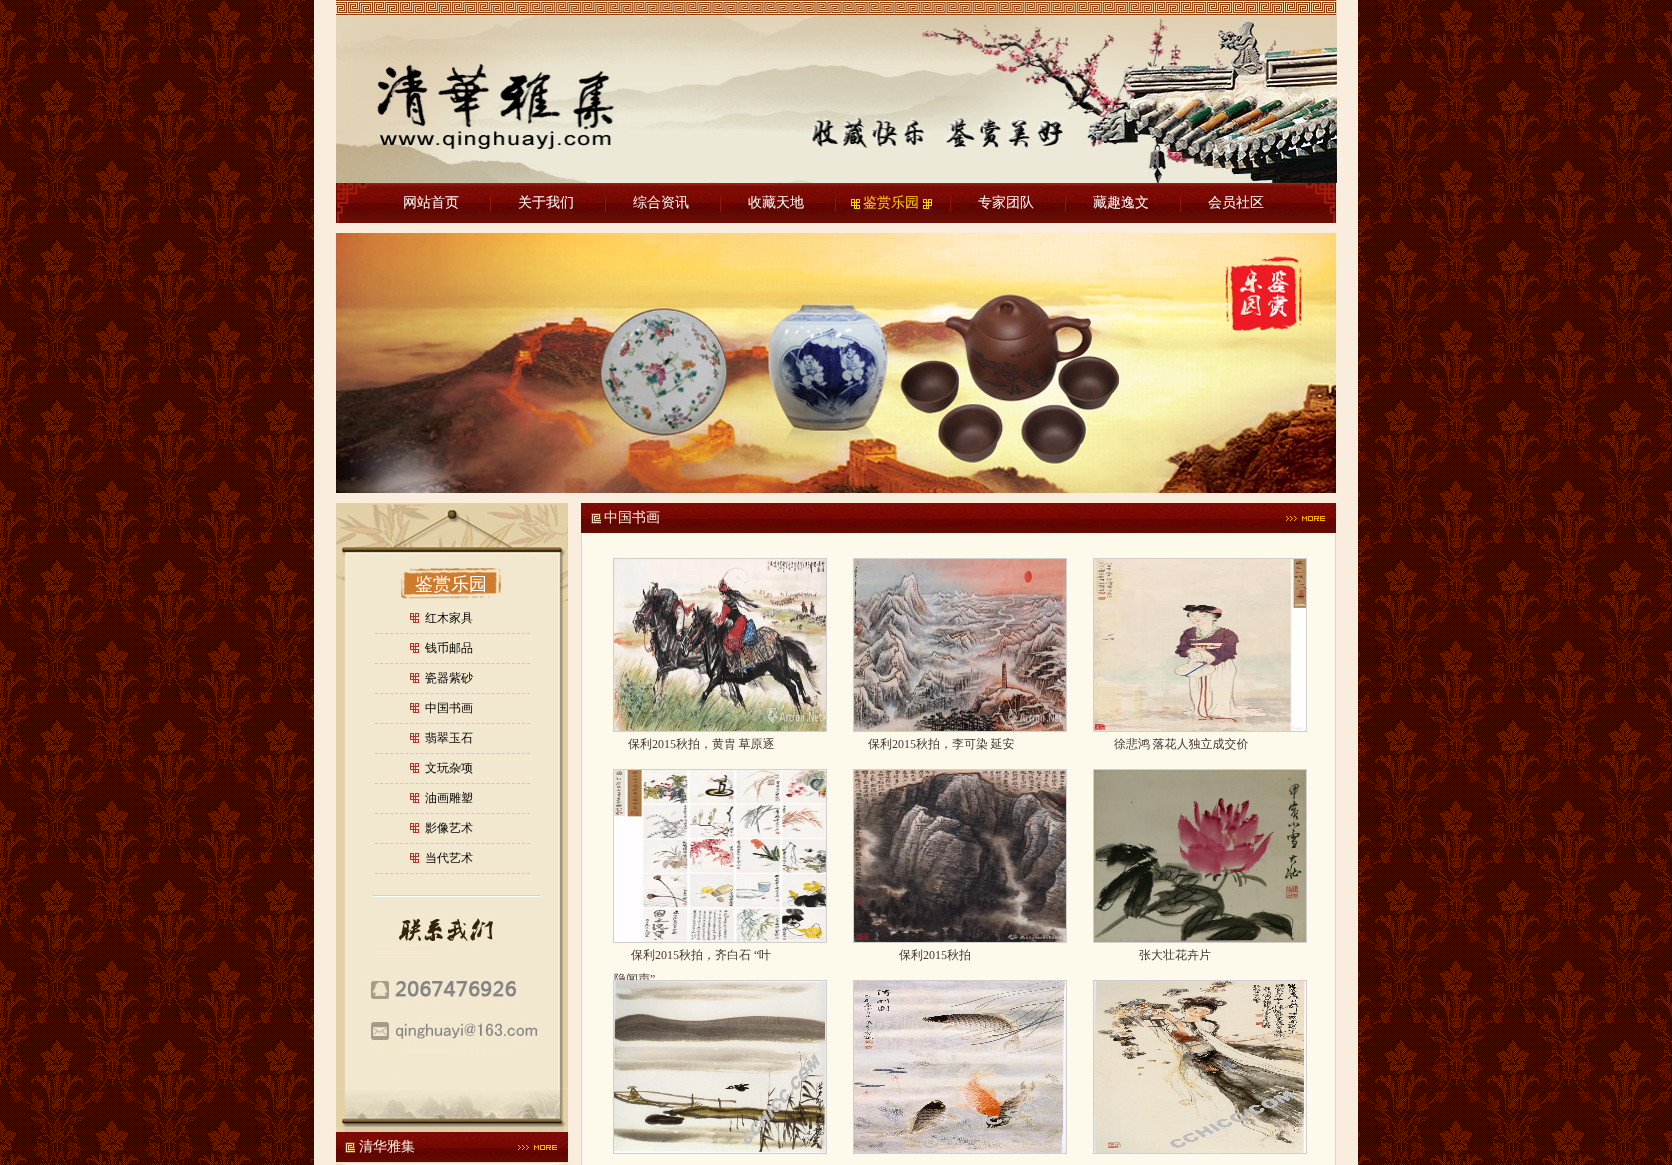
<!DOCTYPE html>
<meta charset="utf-8">
<style>body { margin: 0 } canvas { display: block }</style>
<canvas id="canvas" width="1672" height="1165"></canvas>
<img id="img1" src="images/1.png" hidden>
<img id="img2" src="images/2.png" hidden>
<img id="img3" src="images/3.png" hidden>
<img id="img4" src="images/4.png" hidden>
<img id="img5" src="images/5.png" hidden>
<img id="img6" src="images/6.png" hidden>
<img id="img7" src="images/7.png" hidden>
<img id="img8" src="images/8.png" hidden>
<img id="img9" src="images/9.png" hidden>
<img id="img10" src="images/10.png" hidden>
<img id="img11" src="images/11.png" hidden>
<img id="img12" src="images/12.png" hidden>
<img id="img13" src="images/13.png" hidden>
<img id="img14" src="images/14.png" hidden>
<img id="img15" src="images/15.png" hidden>
<img id="img16" src="images/16.png" hidden>
<img id="img17" src="images/17.png" hidden>
<img id="img18" src="images/18.png" hidden>
<img id="img19" src="images/19.png" hidden>
<img id="img20" src="images/20.png" hidden>
<img id="img21" src="images/21.png" hidden>
<img id="img22" src="images/23.png" hidden>
<img id="img23" src="images/24.png" hidden>
<img id="img24" src="images/22.png" hidden>
<script>
window.onload = function () {
    const canvas = document.getElementById('canvas');
    const context = canvas.getContext('2d');
    context.miterLimit = 4;
    context.fontKerning = 'normal';

    context.fillStyle = 'rgb(255, 255, 255)';
    context.fillRect(0, 0, 1672, 1165);
    context.drawImage(document.getElementById('img1'), 0, 0, 1672, 1165);
    context.fillStyle = 'rgb(250, 237, 221)';
    context.fillRect(314, 0, 1044, 1165);
    context.drawImage(document.getElementById('img2'), 336, 0, 1001, 183);
    context.drawImage(document.getElementById('img3'), 336, 183, 1000, 40);
    context.drawImage(document.getElementById('img4'), 489, 196, 2, 16);
    context.drawImage(document.getElementById('img4'), 604, 196, 2, 16);
    context.drawImage(document.getElementById('img4'), 719, 196, 2, 16);
    context.drawImage(document.getElementById('img4'), 834, 196, 2, 16);
    context.drawImage(document.getElementById('img5'), 851, 199, 81, 10);
    context.drawImage(document.getElementById('img4'), 949, 196, 2, 16);
    context.drawImage(document.getElementById('img4'), 1064, 196, 2, 16);
    context.drawImage(document.getElementById('img4'), 1179, 196, 2, 16);
    context.drawImage(document.getElementById('img6'), 336, 233, 1000, 260);
    context.drawImage(document.getElementById('img7'), 336, 604, 232, 291);
    context.drawImage(document.getElementById('img8'), 336, 503, 232, 101);
    context.drawImage(document.getElementById('img9'), 410, 613, 9, 10);
    context.beginPath();
    context.moveTo(375, 633.5);
    context.lineTo(530, 633.5);
    context.strokeStyle = 'rgb(217, 192, 192)';
    context.setLineDash([3, 2.07]);
    context.stroke();
    context.drawImage(document.getElementById('img9'), 410, 643, 9, 10);
    context.beginPath();
    context.moveTo(375, 663.5);
    context.lineTo(530, 663.5);
    context.stroke();
    context.drawImage(document.getElementById('img9'), 410, 673, 9, 10);
    context.beginPath();
    context.moveTo(375, 693.5);
    context.lineTo(530, 693.5);
    context.stroke();
    context.drawImage(document.getElementById('img9'), 410, 703, 9, 10);
    context.beginPath();
    context.moveTo(375, 723.5);
    context.lineTo(530, 723.5);
    context.stroke();
    context.drawImage(document.getElementById('img9'), 410, 733, 9, 10);
    context.beginPath();
    context.moveTo(375, 753.5);
    context.lineTo(530, 753.5);
    context.stroke();
    context.drawImage(document.getElementById('img9'), 410, 763, 9, 10);
    context.beginPath();
    context.moveTo(375, 783.5);
    context.lineTo(530, 783.5);
    context.stroke();
    context.drawImage(document.getElementById('img9'), 410, 793, 9, 10);
    context.beginPath();
    context.moveTo(375, 813.5);
    context.lineTo(530, 813.5);
    context.stroke();
    context.drawImage(document.getElementById('img9'), 410, 823, 9, 10);
    context.beginPath();
    context.moveTo(375, 843.5);
    context.lineTo(530, 843.5);
    context.stroke();
    context.drawImage(document.getElementById('img9'), 410, 853, 9, 10);
    context.beginPath();
    context.moveTo(375, 873.5);
    context.lineTo(530, 873.5);
    context.stroke();
    context.drawImage(document.getElementById('img10'), 336, 895, 232, 237);
    context.drawImage(document.getElementById('img11'), 336, 1132, 232, 30);
    context.drawImage(document.getElementById('img12'), 518, 1132, 46, 24);
    context.drawImage(document.getElementById('img13'), 336, 1162, 232, 3);
    context.drawImage(document.getElementById('img14'), 581, 503, 703, 30);
    context.drawImage(document.getElementById('img15'), 1284, 503, 52, 30);
    context.fillStyle = 'rgb(253, 250, 236)';
    context.fillRect(582, 533, 753, 632);
    context.fillStyle = 'rgb(213, 213, 213)';
    context.fillRect(1335, 533, 1, 632);
    context.fillRect(581, 533, 1, 632);
    context.strokeStyle = 'rgb(208, 206, 206)';
    context.setLineDash([]);
    context.strokeRect(613.5, 558.5, 213, 173);
    context.drawImage(document.getElementById('img16'), 614, 559, 212, 172);
    context.strokeRect(853.5, 558.5, 213, 173);
    context.drawImage(document.getElementById('img17'), 854, 559, 212, 172);
    context.strokeRect(1093.5, 558.5, 213, 173);
    context.drawImage(document.getElementById('img18'), 1094, 559, 212, 172);
    context.strokeRect(613.5, 769.5, 213, 173);
    context.drawImage(document.getElementById('img19'), 614, 770, 212, 172);
    context.strokeRect(853.5, 769.5, 213, 173);
    context.drawImage(document.getElementById('img20'), 854, 770, 212, 172);
    context.strokeRect(1093.5, 769.5, 213, 173);
    context.drawImage(document.getElementById('img21'), 1094, 770, 212, 172);
    context.strokeRect(853.5, 980.5, 213, 173);
    context.drawImage(document.getElementById('img22'), 854, 981, 212, 172);
    context.strokeRect(1093.5, 980.5, 213, 173);
    context.drawImage(document.getElementById('img23'), 1094, 981, 212, 172);
    context.font = '500 14px WenQuanYi Zen Hei';
    context.fillStyle = 'rgb(255, 255, 255)';
    context.fillText('网站首页', 403, 207);
    context.fillText('关于我们', 518, 207);
    context.fillText('综合资讯', 633, 207);
    context.fillText('收藏天地', 748, 207);
    context.fillStyle = 'rgb(255, 214, 10)';
    context.fillText('鉴赏乐园', 863, 207);
    context.fillStyle = 'rgb(255, 255, 255)';
    context.fillText('专家团队', 978, 207);
    context.fillText('藏趣逸文', 1093, 207);
    context.fillText('会员社区', 1208, 207);
    context.font = '500 18px WenQuanYi Zen Hei';
    context.fillText('鉴赏乐园', 415, 590);
    context.font = '500 12px WenQuanYi Zen Hei';
    context.fillStyle = 'rgb(0, 0, 0)';
    context.fillText('红木家具', 425, 622);
    context.fillText('钱币邮品', 425, 652);
    context.fillText('瓷器紫砂', 425, 682);
    context.fillText('中国书画', 425, 712);
    context.fillText('翡翠玉石', 425, 742);
    context.fillText('文玩杂项', 425, 772);
    context.fillText('油画雕塑', 425, 802);
    context.fillText('影像艺术', 425, 832);
    context.fillText('当代艺术', 425, 862);
    context.font = '500 14px WenQuanYi Zen Hei';
    context.fillStyle = 'rgb(250, 237, 221)';
    context.fillText('清华雅集', 359, 1151);
    context.fillText('中国书画', 604, 522);
    context.font = '500 12px WenQuanYi Zen Hei';
    context.fillStyle = 'rgb(69, 52, 51)';
    context.fillText('保利', 628, 748);
    context.font = '12px Liberation Serif';
    context.fillText('2015', 652, 748);
    context.wordSpacing = '-1px';
    context.font = '500 12px WenQuanYi Zen Hei';
    context.fillText('秋拍，黄胄 草原逐', 676, 748);
    context.wordSpacing = '0px';
    context.fillText('保利', 868, 748);
    context.font = '12px Liberation Serif';
    context.fillText('2015', 892, 748);
    context.wordSpacing = '-1px';
    context.font = '500 12px WenQuanYi Zen Hei';
    context.fillText('秋拍，李可染 延安', 916, 748);
    context.fillText('徐悲鸿 落花人独立成交价', 1114, 748);
    context.wordSpacing = '0px';
    context.fillText('保利', 631, 959);
    context.font = '12px Liberation Serif';
    context.fillText('2015', 655, 959);
    context.font = '500 12px WenQuanYi Zen Hei';
    context.fillText('秋拍，齐白石', 679, 959);
    context.font = '12px Liberation Serif';
    context.fillText('“', 754, 959);
    context.font = '500 12px WenQuanYi Zen Hei';
    context.fillText('叶', 759, 959);
    context.fillText('隐闻声', 614, 983);
    context.font = '12px Liberation Serif';
    context.fillText('”', 650, 983);
    context.font = '500 12px WenQuanYi Zen Hei';
    context.fillText('保利', 899, 959);
    context.font = '12px Liberation Serif';
    context.fillText('2015', 923, 959);
    context.font = '500 12px WenQuanYi Zen Hei';
    context.fillText('秋拍', 947, 959);
    context.fillText('张大壮花卉片', 1139, 959);
    context.strokeRect(613.5, 980.5, 213, 173);
    context.drawImage(document.getElementById('img24'), 614, 981, 212, 172);
};
</script>
